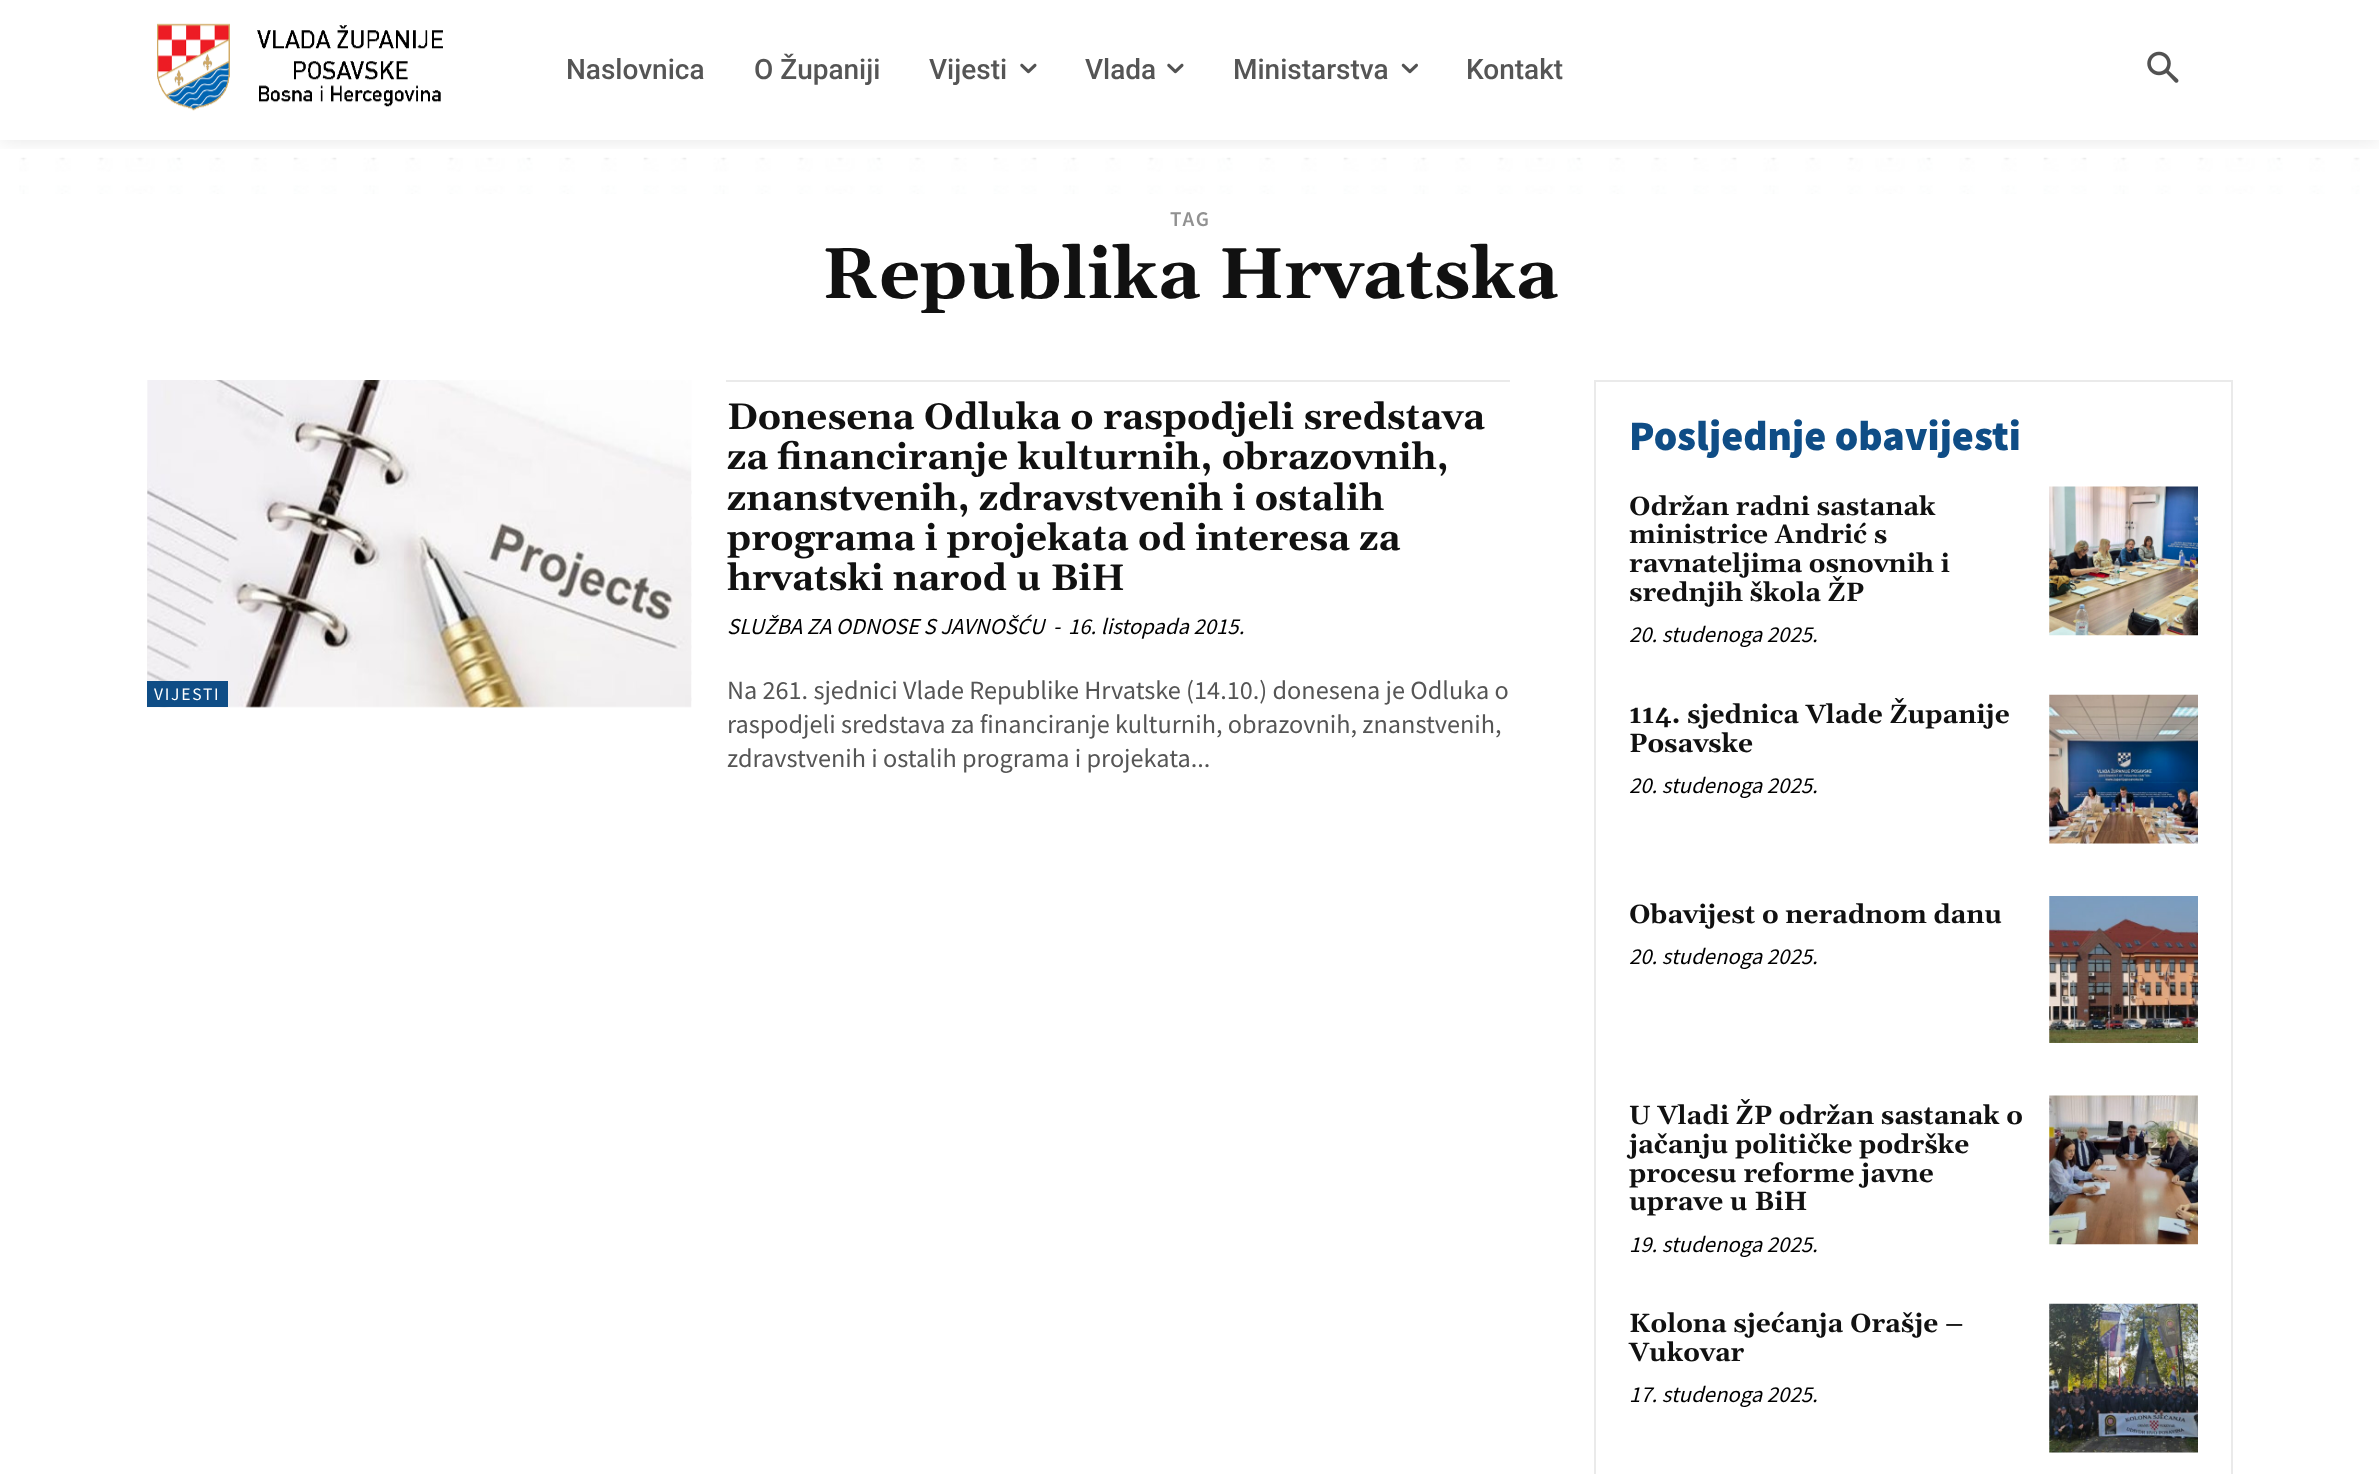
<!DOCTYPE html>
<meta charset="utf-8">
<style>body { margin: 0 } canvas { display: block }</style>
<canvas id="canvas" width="2379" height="1474"></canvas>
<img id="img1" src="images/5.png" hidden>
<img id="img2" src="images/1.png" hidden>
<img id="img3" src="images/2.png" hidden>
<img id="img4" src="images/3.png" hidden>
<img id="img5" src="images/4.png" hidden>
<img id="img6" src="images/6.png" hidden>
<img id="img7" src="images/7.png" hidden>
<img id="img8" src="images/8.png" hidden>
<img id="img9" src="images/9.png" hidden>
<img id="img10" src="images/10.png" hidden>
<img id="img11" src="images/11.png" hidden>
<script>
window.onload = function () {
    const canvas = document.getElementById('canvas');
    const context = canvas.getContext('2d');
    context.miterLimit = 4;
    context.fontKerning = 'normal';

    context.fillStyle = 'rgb(255, 255, 255)';
    context.fillRect(0, 0, 2379, 1474);
    context.drawImage(document.getElementById('img1'), 19, 157, 2341, 37);
    context.save();
    context.beginPath();
    context.rect(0, 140, 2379, 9);
    context.clip();
    context.fillStyle = 'rgba(0, 0, 0, 0.1)';
    context.filter = 'blur(10.5px)';
    context.beginPath();
    context.rect(0, 0, 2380, 140);
    context.fill();
    context.filter = 'none';
    context.restore();
    context.drawImage(document.getElementById('img2'), 157, 23, 286, 88);
    context.drawImage(document.getElementById('img3'), 1020, 63, 17, 11);
    context.drawImage(document.getElementById('img3'), 1167, 63, 17, 11);
    context.drawImage(document.getElementById('img4'), 1401, 63, 17, 11);
    context.drawImage(document.getElementById('img5'), 2147, 51, 32, 32);
    context.drawImage(document.getElementById('img6'), 147, 380, 545, 328);
    context.fillStyle = 'rgb(15, 77, 134)';
    context.fillRect(147, 681, 81, 26);
    context.fillStyle = 'rgb(234, 234, 234)';
    context.fillRect(726, 380, 784, 2);
    context.strokeStyle = 'rgb(234, 234, 234)';
    context.lineWidth = 2;
    context.strokeRect(1595, 381, 637, 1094);
    context.drawImage(document.getElementById('img7'), 2049, 486, 149, 150);
    context.drawImage(document.getElementById('img8'), 2049, 694, 149, 150);
    context.drawImage(document.getElementById('img9'), 2049, 896, 149, 147);
    context.drawImage(document.getElementById('img10'), 2049, 1095, 149, 150);
    context.drawImage(document.getElementById('img11'), 2049, 1303, 149, 150);
    context.font = '500 28px Roboto';
    context.fillStyle = 'rgb(85, 85, 85)';
    context.fillText('Naslovnica', 566, 79);
    context.fillText('O Županiji', 754, 79);
    context.fillText('Vijesti', 929, 79);
    context.fillText('Vlada', 1085, 79);
    context.fillText('Ministarstva', 1233, 79);
    context.fillText('Kontakt', 1466, 79);
    context.letterSpacing = '1.75px';
    context.font = '600 21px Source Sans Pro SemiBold';
    context.fillStyle = 'rgb(145, 145, 145)';
    context.fillText('TAG', 1170, 226);
    context.letterSpacing = '0px';
    context.font = 'bold 71.75px Gelasio';
    context.fillStyle = 'rgb(17, 17, 17)';
    context.fillText('Republika Hrvatska', 822, 298);
    context.letterSpacing = '1.75px';
    context.font = '17.5px Source Sans Pro';
    context.fillStyle = 'rgb(255, 255, 255)';
    context.fillText('VIJESTI', 154, 700);
    context.letterSpacing = '0px';
    context.font = 'bold 36.75px Gelasio';
    context.fillStyle = 'rgb(17, 17, 17)';
    context.fillText('Donesena Odluka o raspodjeli sredstava', 727, 429);
    context.fillText('za financiranje kulturnih, obrazovnih,', 727, 469);
    context.fillText('znanstvenih, zdravstvenih i ostalih', 727, 510);
    context.fillText('programa i projekata od interesa za', 727, 550);
    context.fillText('hrvatski narod u BiH', 727, 590);
    context.font = 'italic 22.75px Source Sans Pro';
    context.fillStyle = 'rgb(0, 0, 0)';
    context.fillText('SLUŽBA ZA ODNOSE S JAVNOŠĆU', 727, 634);
    context.fillText('-', 1053, 634);
    context.fillText('16. listopada 2015.', 1068, 634);
    context.font = '26.25px Source Sans Pro';
    context.fillStyle = 'rgb(85, 85, 85)';
    context.fillText('Na 261. sjednici Vlade Republike Hrvatske (14.10.) donesena je Odluka o', 727, 699);
    context.fillText('raspodjeli sredstava za financiranje kulturnih, obrazovnih, znanstvenih,', 727, 733);
    context.fillText('zdravstvenih i ostalih programa i projekata...', 727, 767);
    context.font = '900 42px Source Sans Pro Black';
    context.fillStyle = 'rgb(15, 77, 134)';
    context.fillText('Posljednje obavijesti', 1629, 450);
    context.font = 'bold 26.25px Gelasio';
    context.fillStyle = 'rgb(17, 17, 17)';
    context.fillText('Održan radni sastanak', 1629, 515);
    context.fillText('ministrice Andrić s', 1629, 543);
    context.fillText('ravnateljima osnovnih i', 1629, 572);
    context.fillText('srednjih škola ŽP', 1629, 601);
    context.font = 'italic 22.75px Source Sans Pro';
    context.fillStyle = 'rgb(0, 0, 0)';
    context.fillText('20. studenoga 2025.', 1629, 642);
    context.font = 'bold 26.25px Gelasio';
    context.fillStyle = 'rgb(17, 17, 17)';
    context.fillText('114. sjednica Vlade Županije', 1629, 723);
    context.fillText('Posavske', 1629, 752);
    context.font = 'italic 22.75px Source Sans Pro';
    context.fillStyle = 'rgb(0, 0, 0)';
    context.fillText('20. studenoga 2025.', 1629, 793);
    context.font = 'bold 26.25px Gelasio';
    context.fillStyle = 'rgb(17, 17, 17)';
    context.fillText('Obavijest o neradnom danu', 1629, 923);
    context.font = 'italic 22.75px Source Sans Pro';
    context.fillStyle = 'rgb(0, 0, 0)';
    context.fillText('20. studenoga 2025.', 1629, 964);
    context.font = 'bold 26.25px Gelasio';
    context.fillStyle = 'rgb(17, 17, 17)';
    context.fillText('U Vladi ŽP održan sastanak o', 1629, 1124);
    context.fillText('jačanju političke podrške', 1629, 1153);
    context.fillText('procesu reforme javne', 1629, 1182);
    context.fillText('uprave u BiH', 1629, 1210);
    context.font = 'italic 22.75px Source Sans Pro';
    context.fillStyle = 'rgb(0, 0, 0)';
    context.fillText('19. studenoga 2025.', 1629, 1252);
    context.font = 'bold 26.25px Gelasio';
    context.fillStyle = 'rgb(17, 17, 17)';
    context.fillText('Kolona sjećanja Orašje –', 1629, 1332);
    context.fillText('Vukovar', 1629, 1361);
    context.font = 'italic 22.75px Source Sans Pro';
    context.fillStyle = 'rgb(0, 0, 0)';
    context.fillText('17. studenoga 2025.', 1629, 1402);
};
</script>
